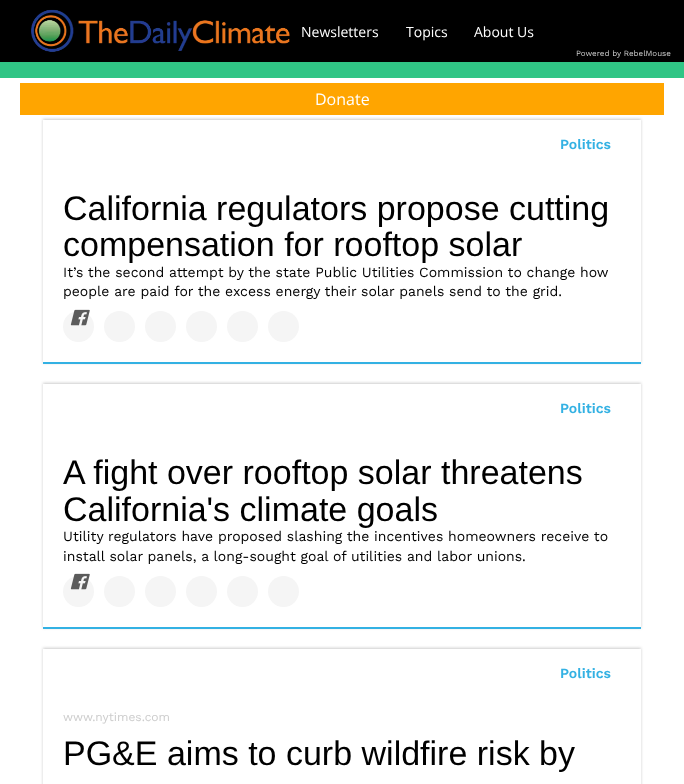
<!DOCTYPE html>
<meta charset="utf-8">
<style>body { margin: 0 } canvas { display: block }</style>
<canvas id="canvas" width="684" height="784"></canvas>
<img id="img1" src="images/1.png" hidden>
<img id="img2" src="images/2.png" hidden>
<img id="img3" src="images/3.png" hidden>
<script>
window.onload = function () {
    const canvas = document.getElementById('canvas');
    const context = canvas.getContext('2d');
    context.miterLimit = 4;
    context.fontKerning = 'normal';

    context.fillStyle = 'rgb(255, 255, 255)';
    context.fillRect(0, 0, 684, 784);
    context.fillStyle = 'rgb(0, 0, 0)';
    context.fillRect(0, 0, 684, 62);
    context.drawImage(document.getElementById('img1'), 31, 9, 259, 43);
    context.save();
    context.beginPath();
    context.moveTo(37, 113);
    context.lineTo(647, 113);
    context.lineTo(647, 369);
    context.lineTo(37, 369);
    context.closePath();
    context.moveTo(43, 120);
    context.lineTo(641, 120);
    context.lineTo(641, 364);
    context.lineTo(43, 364);
    context.closePath();
    context.clip('evenodd');
    context.fillStyle = 'rgb(204, 204, 204)';
    context.filter = 'blur(1.5px)';
    context.beginPath();
    context.rect(43, 119, 598, 244);
    context.fill();
    context.filter = 'none';
    context.restore();
    context.fillStyle = 'rgb(255, 165, 0)';
    context.fillRect(20, 83, 644, 32);
    context.fillStyle = 'rgb(48, 197, 133)';
    context.fillRect(0, 62, 684, 16);
    context.fillStyle = 'rgb(51, 177, 227)';
    context.fillRect(43, 362, 598, 2);
    context.fillStyle = 'rgb(245, 245, 245)';
    context.beginPath();
    context.arc(78.5, 326.5, 15.5, 0, 2 * Math.PI);
    context.fill();
    context.drawImage(document.getElementById('img2'), 70, 309, 20, 17);
    context.beginPath();
    context.arc(119.5, 326.5, 15.5, 0, 2 * Math.PI);
    context.fill();
    context.beginPath();
    context.arc(160.5, 326.5, 15.5, 0, 2 * Math.PI);
    context.fill();
    context.beginPath();
    context.arc(201.5, 326.5, 15.5, 0, 2 * Math.PI);
    context.fill();
    context.beginPath();
    context.arc(242.5, 326.5, 15.5, 0, 2 * Math.PI);
    context.fill();
    context.beginPath();
    context.arc(283.5, 326.5, 15.5, 0, 2 * Math.PI);
    context.fill();
    context.save();
    context.beginPath();
    context.moveTo(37, 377);
    context.lineTo(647, 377);
    context.lineTo(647, 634);
    context.lineTo(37, 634);
    context.closePath();
    context.moveTo(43, 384);
    context.lineTo(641, 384);
    context.lineTo(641, 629);
    context.lineTo(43, 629);
    context.closePath();
    context.clip('evenodd');
    context.fillStyle = 'rgb(204, 204, 204)';
    context.filter = 'blur(1.5px)';
    context.beginPath();
    context.rect(43, 383, 598, 245);
    context.fill();
    context.filter = 'none';
    context.restore();
    context.fillStyle = 'rgb(51, 177, 227)';
    context.fillRect(43, 627, 598, 2);
    context.fillStyle = 'rgb(245, 245, 245)';
    context.beginPath();
    context.arc(78.5, 591.5, 15.5, 0, 2 * Math.PI);
    context.fill();
    context.drawImage(document.getElementById('img3'), 70, 573, 20, 17);
    context.beginPath();
    context.arc(119.5, 591.5, 15.5, 0, 2 * Math.PI);
    context.fill();
    context.beginPath();
    context.arc(160.5, 591.5, 15.5, 0, 2 * Math.PI);
    context.fill();
    context.beginPath();
    context.arc(201.5, 591.5, 15.5, 0, 2 * Math.PI);
    context.fill();
    context.beginPath();
    context.arc(242.5, 591.5, 15.5, 0, 2 * Math.PI);
    context.fill();
    context.beginPath();
    context.arc(283.5, 591.5, 15.5, 0, 2 * Math.PI);
    context.fill();
    context.save();
    context.beginPath();
    context.moveTo(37, 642);
    context.lineTo(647, 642);
    context.lineTo(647, 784);
    context.lineTo(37, 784);
    context.closePath();
    context.moveTo(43, 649);
    context.lineTo(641, 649);
    context.lineTo(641, 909);
    context.lineTo(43, 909);
    context.closePath();
    context.clip('evenodd');
    context.fillStyle = 'rgb(204, 204, 204)';
    context.filter = 'blur(1.5px)';
    context.beginPath();
    context.rect(43, 648, 598, 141);
    context.fill();
    context.filter = 'none';
    context.restore();
    context.font = '14px Open Sans';
    context.fillStyle = 'rgb(255, 255, 255)';
    context.fillText('Newsletters', 301, 37);
    context.fillText('Topics', 406, 37);
    context.fillText('About Us', 474, 37);
    context.font = '8px Work Sans';
    context.fillStyle = 'rgb(204, 204, 204)';
    context.fillText('Powered by RebelMouse', 576, 56);
    context.font = '16px Open Sans';
    context.fillStyle = 'rgb(255, 255, 255)';
    context.fillText('Donate', 315, 105);
    context.font = '600 14px Work Sans';
    context.fillStyle = 'rgb(51, 177, 227)';
    context.fillText('Politics', 560, 149);
    context.font = '34px Liberation Sans';
    context.fillStyle = 'rgb(0, 0, 0)';
    context.fillText('California regulators propose cutting', 63, 220);
    context.fillText('compensation for rooftop solar', 63, 256);
    context.font = '14px Work Sans';
    context.fillText('It’s the second attempt by the state Public Utilities Commission to change how', 63, 277);
    context.fillText('people are paid for the excess energy their solar panels send to the grid.', 63, 296);
    context.font = '600 14px Work Sans';
    context.fillStyle = 'rgb(51, 177, 227)';
    context.fillText('Politics', 560, 413);
    context.font = '34px Liberation Sans';
    context.fillStyle = 'rgb(0, 0, 0)';
    context.fillText('A fight over rooftop solar threatens', 63, 484);
    context.fillText('California\'s climate goals', 63, 521);
    context.font = '14px Work Sans';
    context.fillText('Utility regulators have proposed slashing the incentives homeowners receive to', 63, 541);
    context.fillText('install solar panels, a long-sought goal of utilities and labor unions.', 63, 561);
    context.font = '600 14px Work Sans';
    context.fillStyle = 'rgb(51, 177, 227)';
    context.fillText('Politics', 560, 678);
    context.font = '12px Work Sans';
    context.fillStyle = 'rgb(204, 204, 204)';
    context.fillText('www.nytimes.com', 63, 721);
    context.font = '34px Liberation Sans';
    context.fillStyle = 'rgb(0, 0, 0)';
    context.fillText('PG&E aims to curb wildfire risk by', 63, 765);
};
</script>
